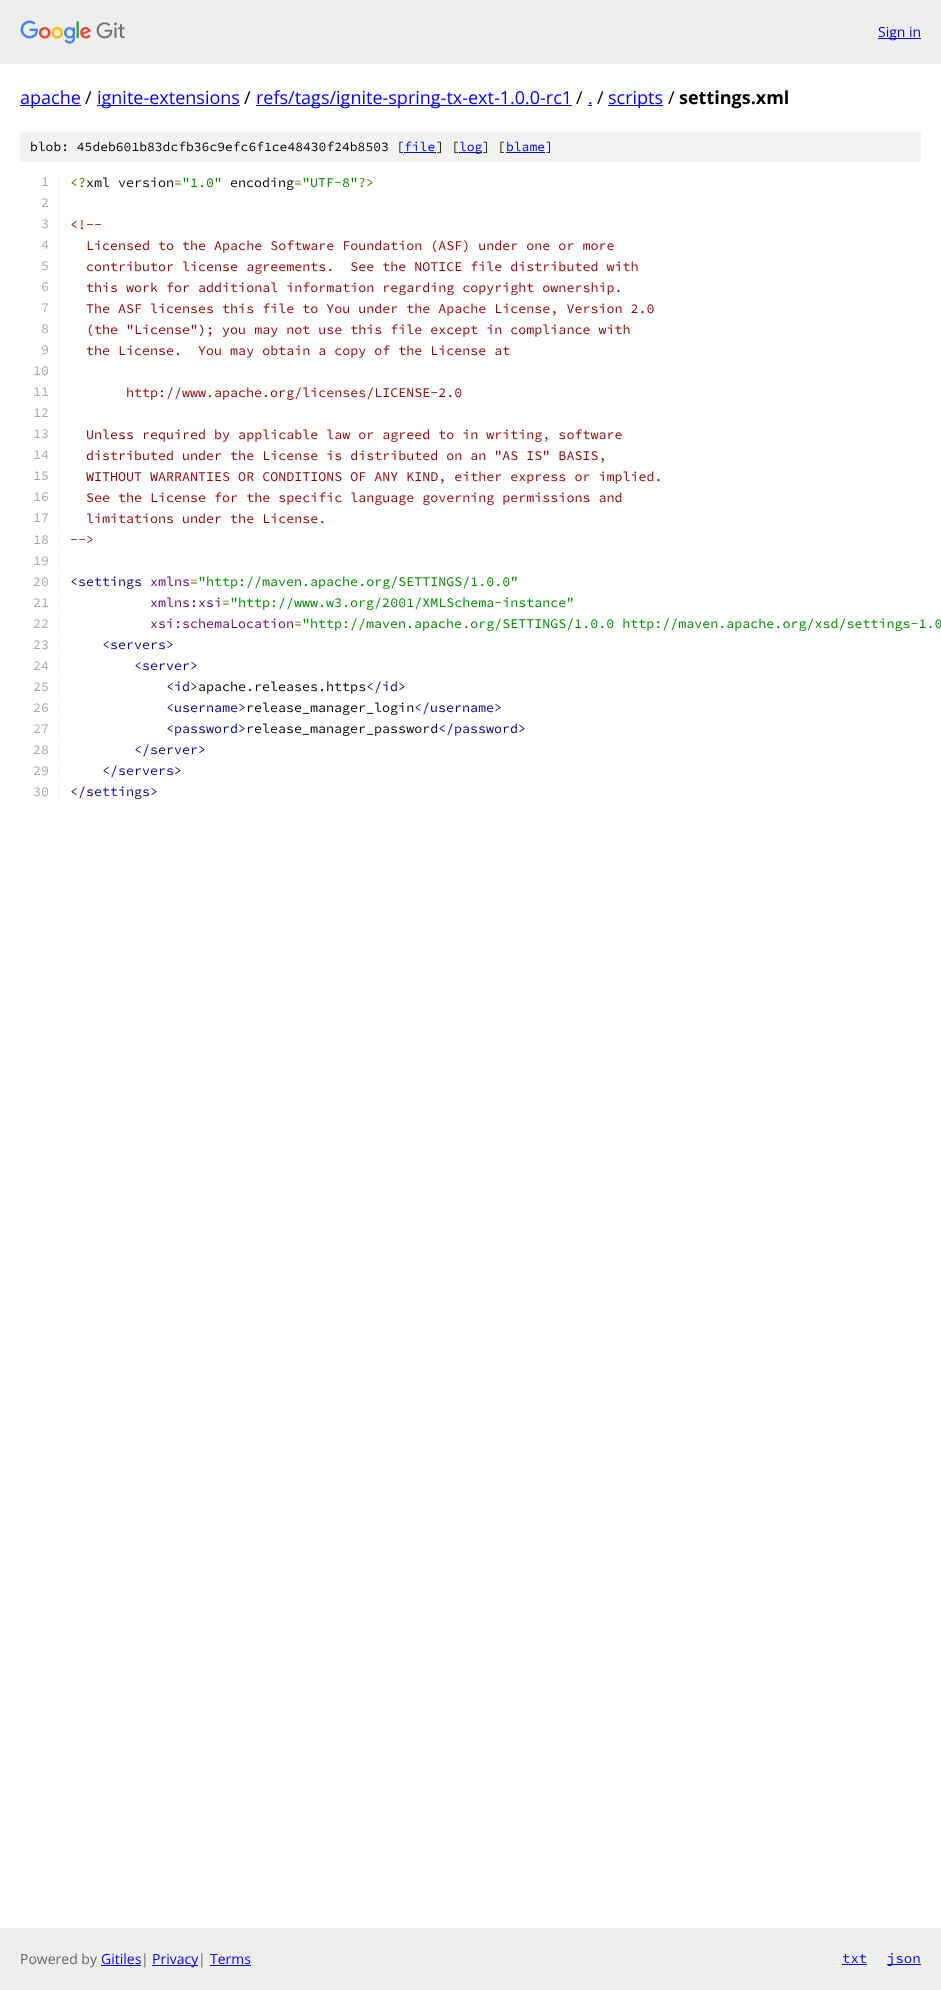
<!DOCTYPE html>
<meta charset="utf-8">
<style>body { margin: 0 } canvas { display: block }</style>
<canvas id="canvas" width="941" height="1990"></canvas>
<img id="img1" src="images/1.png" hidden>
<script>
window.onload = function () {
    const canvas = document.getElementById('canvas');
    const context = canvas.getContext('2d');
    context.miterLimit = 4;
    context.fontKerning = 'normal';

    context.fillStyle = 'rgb(255, 255, 255)';
    context.fillRect(0, 0, 941, 1990);
    context.fillStyle = 'rgb(238, 238, 238)';
    context.fillRect(0, 0, 941, 64);
    context.drawImage(document.getElementById('img1'), 20, 20, 105, 24);
    context.fillStyle = 'rgb(0, 0, 238)';
    context.fillRect(878, 38, 43, 1);
    context.fillRect(20, 105, 61, 1);
    context.fillRect(97, 105, 143, 1);
    context.fillRect(256, 105, 316, 1);
    context.fillRect(588, 105, 4, 1);
    context.fillRect(608, 105, 55, 1);
    context.fillStyle = 'rgb(241, 242, 243)';
    context.fillRect(20, 132, 901, 30);
    context.fillStyle = 'rgb(0, 0, 238)';
    context.fillRect(404, 152, 32, 1);
    context.fillRect(459, 152, 23, 1);
    context.fillRect(506, 152, 39, 1);
    context.fillStyle = 'rgb(241, 242, 243)';
    context.fillRect(59, 172, 1, 357);
    context.fillRect(59, 530, 1, 20);
    context.fillRect(59, 551, 1, 20);
    context.fillRect(59, 572, 1, 20);
    context.fillRect(59, 593, 1, 20);
    context.fillRect(59, 614, 1, 20);
    context.fillRect(59, 635, 1, 20);
    context.fillRect(59, 656, 1, 20);
    context.fillRect(59, 677, 1, 20);
    context.fillRect(59, 698, 1, 20);
    context.fillRect(59, 719, 1, 20);
    context.fillRect(59, 740, 1, 20);
    context.fillRect(59, 761, 1, 20);
    context.fillRect(59, 782, 1, 20);
    context.fillStyle = 'rgb(238, 238, 238)';
    context.fillRect(0, 1928, 941, 62);
    context.fillStyle = 'rgb(0, 0, 238)';
    context.fillRect(101, 1965, 40, 1);
    context.fillRect(152, 1965, 46, 1);
    context.fillRect(210, 1965, 41, 1);
    context.fillRect(842, 1964, 25, 1);
    context.fillRect(887, 1964, 34, 1);
    context.font = '14px Open Sans';
    context.fillText('Sign in', 878, 37);
    context.font = '18px Open Sans';
    context.fillText('apache', 20, 104);
    context.fillStyle = 'rgb(0, 0, 0)';
    context.fillText('/', 85, 104);
    context.fillStyle = 'rgb(0, 0, 238)';
    context.fillText('ignite-extensions', 97, 104);
    context.fillStyle = 'rgb(0, 0, 0)';
    context.fillText('/', 244, 104);
    context.fillStyle = 'rgb(0, 0, 238)';
    context.fillText('refs/tags/ignite-spring-tx-ext-1.0.0-rc1', 256, 104);
    context.fillStyle = 'rgb(0, 0, 0)';
    context.fillText('/', 576, 104);
    context.fillStyle = 'rgb(0, 0, 238)';
    context.fillText('.', 588, 104);
    context.fillStyle = 'rgb(0, 0, 0)';
    context.fillText('/', 597, 104);
    context.fillStyle = 'rgb(0, 0, 238)';
    context.fillText('scripts', 608, 104);
    context.fillStyle = 'rgb(0, 0, 0)';
    context.fillText('/', 668, 104);
    context.font = 'bold 18px Open Sans';
    context.fillText('settings.xml', 679, 104);
    context.font = '200 13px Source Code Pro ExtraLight';
    context.fillText('blob: 45deb601b83dcfb36c9efc6f1ce48430f24b8503 [', 30, 151);
    context.fillStyle = 'rgb(0, 0, 238)';
    context.fillText('file', 404, 151);
    context.fillStyle = 'rgb(0, 0, 0)';
    context.fillText('] [', 436, 151);
    context.fillStyle = 'rgb(0, 0, 238)';
    context.fillText('log', 459, 151);
    context.fillStyle = 'rgb(0, 0, 0)';
    context.fillText('] [', 482, 151);
    context.fillStyle = 'rgb(0, 0, 238)';
    context.fillText('blame', 506, 151);
    context.fillStyle = 'rgb(0, 0, 0)';
    context.fillText(']', 545, 151);
    context.font = '200 13.35px Source Code Pro ExtraLight';
    context.fillStyle = 'rgb(170, 170, 170)';
    context.fillText('1', 41, 186);
    context.fillStyle = 'rgb(102, 102, 0)';
    context.fillText('<?', 70, 187);
    context.fillStyle = 'rgb(0, 0, 0)';
    context.fillText('xml version', 86, 187);
    context.fillStyle = 'rgb(102, 102, 0)';
    context.fillText('=', 174, 187);
    context.fillStyle = 'rgb(0, 136, 0)';
    context.fillText('"1.0"', 182, 187);
    context.fillStyle = 'rgb(0, 0, 0)';
    context.fillText('encoding', 230, 187);
    context.fillStyle = 'rgb(102, 102, 0)';
    context.fillText('=', 294, 187);
    context.fillStyle = 'rgb(0, 136, 0)';
    context.fillText('"UTF-8"', 302, 187);
    context.fillStyle = 'rgb(102, 102, 0)';
    context.fillText('?>', 358, 187);
    context.fillStyle = 'rgb(170, 170, 170)';
    context.fillText('2', 41, 207);
    context.fillText('3', 41, 228);
    context.fillStyle = 'rgb(136, 0, 0)';
    context.fillText('<\!--', 70, 229);
    context.fillStyle = 'rgb(170, 170, 170)';
    context.fillText('4', 41, 249);
    context.fillStyle = 'rgb(136, 0, 0)';
    context.fillText('Licensed to the Apache Software Foundation (ASF) under one or more', 86, 250);
    context.fillStyle = 'rgb(170, 170, 170)';
    context.fillText('5', 41, 270);
    context.fillStyle = 'rgb(136, 0, 0)';
    context.fillText('contributor license agreements.  See the NOTICE file distributed with', 86, 271);
    context.fillStyle = 'rgb(170, 170, 170)';
    context.fillText('6', 41, 291);
    context.fillStyle = 'rgb(136, 0, 0)';
    context.fillText('this work for additional information regarding copyright ownership.', 86, 292);
    context.fillStyle = 'rgb(170, 170, 170)';
    context.fillText('7', 41, 312);
    context.fillStyle = 'rgb(136, 0, 0)';
    context.fillText('The ASF licenses this file to You under the Apache License, Version 2.0', 86, 313);
    context.fillStyle = 'rgb(170, 170, 170)';
    context.fillText('8', 41, 333);
    context.fillStyle = 'rgb(136, 0, 0)';
    context.fillText('(the "License"); you may not use this file except in compliance with', 86, 334);
    context.fillStyle = 'rgb(170, 170, 170)';
    context.fillText('9', 41, 354);
    context.fillStyle = 'rgb(136, 0, 0)';
    context.fillText('the License.  You may obtain a copy of the License at', 86, 355);
    context.fillStyle = 'rgb(170, 170, 170)';
    context.fillText('10', 33, 375);
    context.fillText('11', 33, 396);
    context.fillStyle = 'rgb(136, 0, 0)';
    context.fillText('http://www.apache.org/licenses/LICENSE-2.0', 126, 397);
    context.fillStyle = 'rgb(170, 170, 170)';
    context.fillText('12', 33, 417);
    context.fillText('13', 33, 438);
    context.fillStyle = 'rgb(136, 0, 0)';
    context.fillText('Unless required by applicable law or agreed to in writing, software', 86, 439);
    context.fillStyle = 'rgb(170, 170, 170)';
    context.fillText('14', 33, 459);
    context.fillStyle = 'rgb(136, 0, 0)';
    context.fillText('distributed under the License is distributed on an "AS IS" BASIS,', 86, 460);
    context.fillStyle = 'rgb(170, 170, 170)';
    context.fillText('15', 33, 480);
    context.fillStyle = 'rgb(136, 0, 0)';
    context.fillText('WITHOUT WARRANTIES OR CONDITIONS OF ANY KIND, either express or implied.', 86, 481);
    context.fillStyle = 'rgb(170, 170, 170)';
    context.fillText('16', 33, 501);
    context.fillStyle = 'rgb(136, 0, 0)';
    context.fillText('See the License for the specific language governing permissions and', 86, 502);
    context.fillStyle = 'rgb(170, 170, 170)';
    context.fillText('17', 33, 522);
    context.fillStyle = 'rgb(136, 0, 0)';
    context.fillText('limitations under the License.', 86, 523);
    context.fillStyle = 'rgb(170, 170, 170)';
    context.fillText('18', 33, 544);
    context.fillStyle = 'rgb(136, 0, 0)';
    context.fillText('-->', 70, 544);
    context.fillStyle = 'rgb(170, 170, 170)';
    context.fillText('19', 33, 565);
    context.fillText('20', 33, 586);
    context.fillStyle = 'rgb(0, 0, 136)';
    context.fillText('<settings', 70, 586);
    context.fillStyle = 'rgb(102, 0, 102)';
    context.fillText('xmlns', 150, 586);
    context.fillStyle = 'rgb(102, 102, 0)';
    context.fillText('=', 190, 586);
    context.fillStyle = 'rgb(0, 136, 0)';
    context.fillText('"http://maven.apache.org/SETTINGS/1.0.0"', 198, 586);
    context.fillStyle = 'rgb(170, 170, 170)';
    context.fillText('21', 33, 607);
    context.fillStyle = 'rgb(102, 0, 102)';
    context.fillText('xmlns:xsi', 150, 607);
    context.fillStyle = 'rgb(102, 102, 0)';
    context.fillText('=', 222, 607);
    context.fillStyle = 'rgb(0, 136, 0)';
    context.fillText('"http://www.w3.org/2001/XMLSchema-instance"', 230, 607);
    context.fillStyle = 'rgb(170, 170, 170)';
    context.fillText('22', 33, 628);
    context.fillStyle = 'rgb(102, 0, 102)';
    context.fillText('xsi:schemaLocation', 150, 628);
    context.fillStyle = 'rgb(102, 102, 0)';
    context.fillText('=', 294, 628);
    context.fillStyle = 'rgb(0, 136, 0)';
    context.fillText('"http://maven.apache.org/SETTINGS/1.0.0 http://maven.apache.org/xsd/settings-1.0', 302, 628);
    context.fillStyle = 'rgb(170, 170, 170)';
    context.fillText('23', 33, 649);
    context.fillStyle = 'rgb(0, 0, 136)';
    context.fillText('<servers>', 102, 649);
    context.fillStyle = 'rgb(170, 170, 170)';
    context.fillText('24', 33, 670);
    context.fillStyle = 'rgb(0, 0, 136)';
    context.fillText('<server>', 134, 670);
    context.fillStyle = 'rgb(170, 170, 170)';
    context.fillText('25', 33, 691);
    context.fillStyle = 'rgb(0, 0, 136)';
    context.fillText('<id>', 166, 691);
    context.fillStyle = 'rgb(0, 0, 0)';
    context.fillText('apache.releases.https', 198, 691);
    context.fillStyle = 'rgb(0, 0, 136)';
    context.fillText('<\/id>', 366, 691);
    context.fillStyle = 'rgb(170, 170, 170)';
    context.fillText('26', 33, 712);
    context.fillStyle = 'rgb(0, 0, 136)';
    context.fillText('<username>', 166, 712);
    context.fillStyle = 'rgb(0, 0, 0)';
    context.fillText('release_manager_login', 246, 712);
    context.fillStyle = 'rgb(0, 0, 136)';
    context.fillText('<\/username>', 414, 712);
    context.fillStyle = 'rgb(170, 170, 170)';
    context.fillText('27', 33, 733);
    context.fillStyle = 'rgb(0, 0, 136)';
    context.fillText('<password>', 166, 733);
    context.fillStyle = 'rgb(0, 0, 0)';
    context.fillText('release_manager_password', 246, 733);
    context.fillStyle = 'rgb(0, 0, 136)';
    context.fillText('<\/password>', 438, 733);
    context.fillStyle = 'rgb(170, 170, 170)';
    context.fillText('28', 33, 754);
    context.fillStyle = 'rgb(0, 0, 136)';
    context.fillText('<\/server>', 134, 754);
    context.fillStyle = 'rgb(170, 170, 170)';
    context.fillText('29', 33, 775);
    context.fillStyle = 'rgb(0, 0, 136)';
    context.fillText('<\/servers>', 102, 775);
    context.fillStyle = 'rgb(170, 170, 170)';
    context.fillText('30', 33, 796);
    context.fillStyle = 'rgb(0, 0, 136)';
    context.fillText('<\/settings>', 70, 796);
    context.font = '14px Open Sans';
    context.fillStyle = 'rgb(102, 102, 102)';
    context.fillText('Powered by', 20, 1964);
    context.fillStyle = 'rgb(0, 0, 238)';
    context.fillText('Gitiles', 101, 1964);
    context.fillStyle = 'rgb(102, 102, 102)';
    context.fillText('|', 141, 1964);
    context.fillStyle = 'rgb(0, 0, 238)';
    context.fillText('Privacy', 152, 1964);
    context.fillStyle = 'rgb(102, 102, 102)';
    context.fillText('|', 198, 1964);
    context.fillStyle = 'rgb(0, 0, 238)';
    context.fillText('Terms', 210, 1964);
    context.font = '200 14px Source Code Pro ExtraLight';
    context.fillText('txt', 842, 1963);
    context.fillText('json', 887, 1963);
};
</script>
